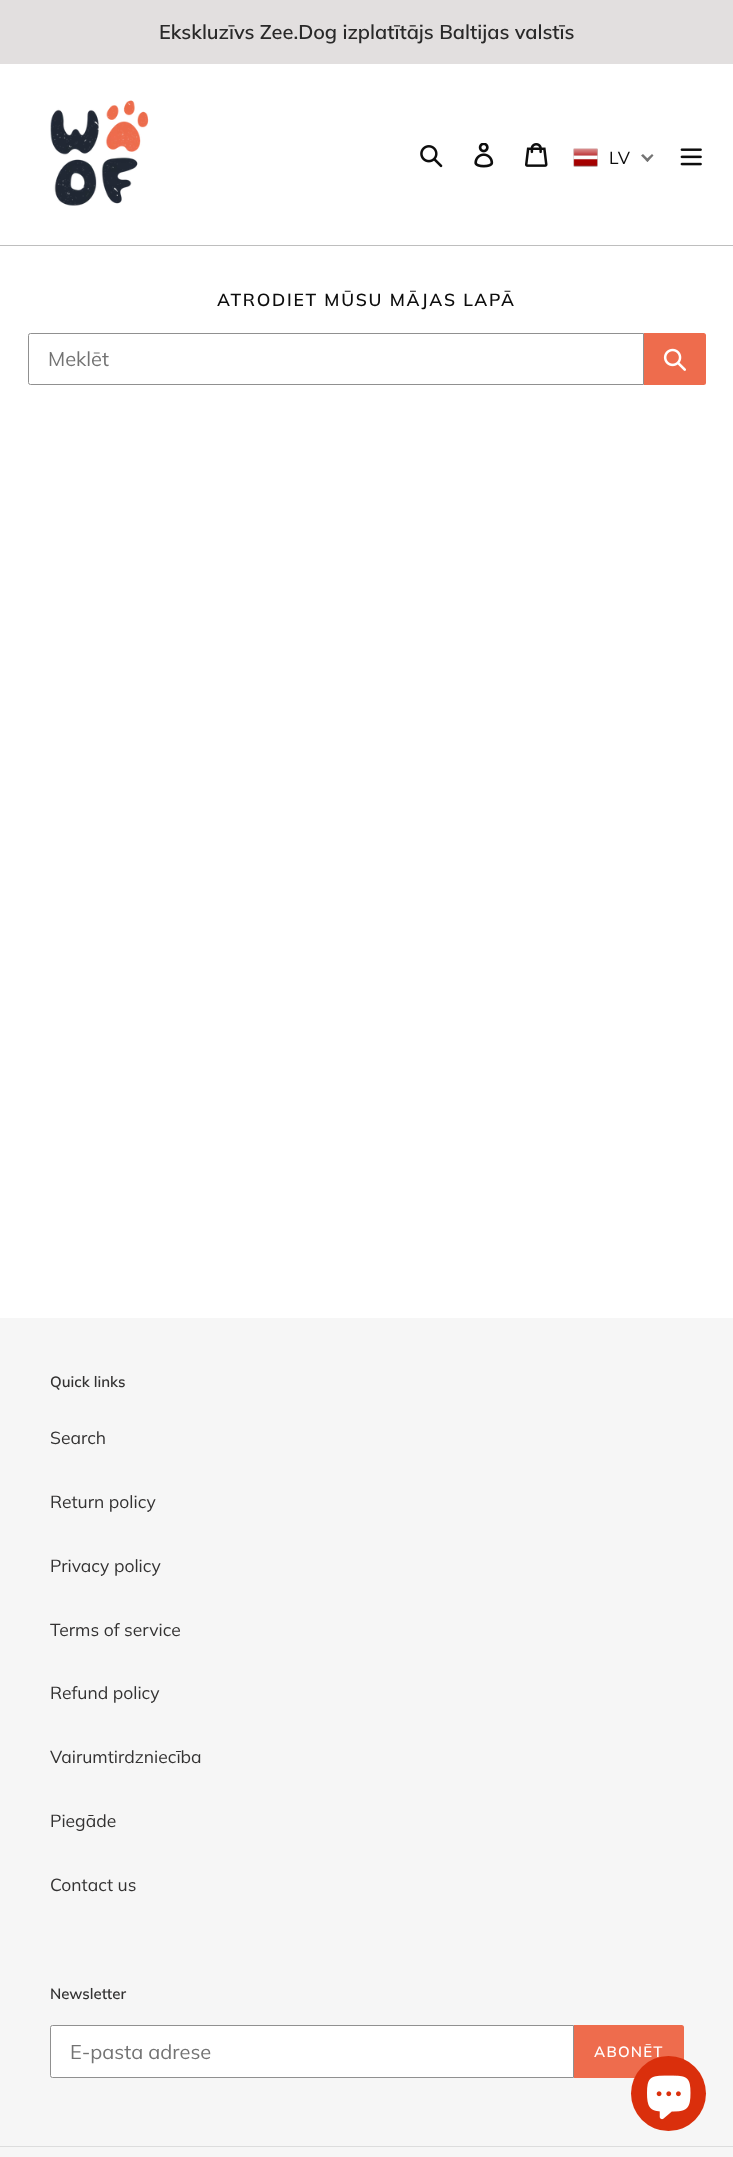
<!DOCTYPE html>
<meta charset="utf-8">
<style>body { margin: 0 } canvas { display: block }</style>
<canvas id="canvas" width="733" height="2157"></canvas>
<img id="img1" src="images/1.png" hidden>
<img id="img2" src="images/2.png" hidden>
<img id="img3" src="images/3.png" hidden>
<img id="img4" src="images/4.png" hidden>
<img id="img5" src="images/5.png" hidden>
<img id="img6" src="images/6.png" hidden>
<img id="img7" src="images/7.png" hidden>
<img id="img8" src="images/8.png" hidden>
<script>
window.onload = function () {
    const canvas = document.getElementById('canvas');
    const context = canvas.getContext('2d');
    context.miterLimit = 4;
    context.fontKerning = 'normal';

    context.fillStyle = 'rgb(255, 255, 255)';
    context.fillRect(0, 0, 733, 2157);
    context.fillStyle = 'rgb(226, 223, 223)';
    context.fillRect(0, 0, 733, 64);
    context.fillStyle = 'rgb(190, 190, 190)';
    context.fillRect(0, 245, 733, 1);
    context.drawImage(document.getElementById('img1'), 50, 100, 99, 106);
    context.drawImage(document.getElementById('img2'), 420, 145, 23, 23);
    context.drawImage(document.getElementById('img3'), 474, 143, 20, 25);
    context.drawImage(document.getElementById('img4'), 525, 143, 23, 24);
    context.drawImage(document.getElementById('img5'), 573, 148, 25, 19);
    context.fillStyle = 'rgb(116, 116, 116)';
    context.beginPath();
    context.moveTo(652, 154);
    context.lineTo(653.5, 155.5);
    context.lineTo(647.5, 162);
    context.lineTo(645.5, 160);
    context.closePath();
    context.fill();
    context.beginPath();
    context.moveTo(643, 154);
    context.lineTo(649, 160);
    context.lineTo(647.5, 162);
    context.lineTo(641, 155.5);
    context.closePath();
    context.fill();
    context.drawImage(document.getElementById('img6'), 680, 148, 22, 18);
    context.beginPath();
    context.roundRect(28.5, 333.5, 615, 51, [2, 0, 0, 2]);
    context.strokeStyle = 'rgb(144, 144, 144)';
    context.stroke();
    context.fillStyle = 'rgb(238, 108, 77)';
    context.beginPath();
    context.roundRect(644, 333, 62, 52, [0, 2.5, 2.5, 0]);
    context.fill();
    context.drawImage(document.getElementById('img7'), 663, 348, 23, 23);
    context.fillStyle = 'rgb(246, 246, 246)';
    context.fillRect(0, 1318, 733, 839);
    context.fillStyle = 'rgb(255, 255, 255)';
    context.beginPath();
    context.roundRect(50.5, 2025.5, 523, 52, [2, 0, 0, 2]);
    context.fill();
    context.stroke();
    context.fillStyle = 'rgb(238, 108, 77)';
    context.beginPath();
    context.roundRect(574, 2025, 110, 53, [0, 2.5, 2.5, 0]);
    context.fill();
    context.fillStyle = 'rgb(221, 221, 221)';
    context.fillRect(0, 2146, 733, 1);
    context.font = '600 20px Muli';
    context.fillStyle = 'rgb(41, 41, 41)';
    context.fillText('Ekskluzīvs Zee.Dog izplatītājs Baltijas valstīs', 159, 39);
    context.letterSpacing = '1px';
    context.font = '17.5px Muli';
    context.fillStyle = 'rgb(13, 13, 13)';
    context.fillText('LV', 609, 164);
    context.letterSpacing = '1.75px';
    context.font = '600 17.5px Muli';
    context.fillText('ATRODIET MŪSU MĀJAS LAPĀ', 217, 306);
    context.letterSpacing = '0px';
    context.font = '20px Muli';
    context.fillStyle = 'rgb(115, 115, 115)';
    context.fillText('Meklēt', 48, 366);
    context.font = '600 15px Muli';
    context.fillStyle = 'rgb(51, 50, 50)';
    context.fillText('Quick links', 50, 1387);
    context.font = '17.5px Muli';
    context.fillText('Search', 50, 1444);
    context.fillText('Return policy', 50, 1508);
    context.fillText('Privacy policy', 50, 1572);
    context.fillText('Terms of service', 50, 1636);
    context.fillText('Refund policy', 50, 1699);
    context.fillText('Vairumtirdzniecība', 50, 1763);
    context.fillText('Piegāde', 50, 1827);
    context.fillText('Contact us', 50, 1891);
    context.font = '600 15px Muli';
    context.fillText('Newsletter', 50, 1999);
    context.font = '20px Muli';
    context.fillStyle = 'rgb(115, 115, 115)';
    context.fillText('E-pasta adrese', 70, 2059);
    context.letterSpacing = '1.25px';
    context.font = '600 15px Muli';
    context.fillStyle = 'rgb(255, 255, 255)';
    context.fillText('ABONĒT', 594, 2057);
    context.fillStyle = 'rgb(218, 47, 12)';
    context.beginPath();
    context.arc(668.5, 2093.5, 37.5, 0, 2 * Math.PI);
    context.fill();
    context.drawImage(document.getElementById('img8'), 647, 2075, 44, 45);
};
</script>
